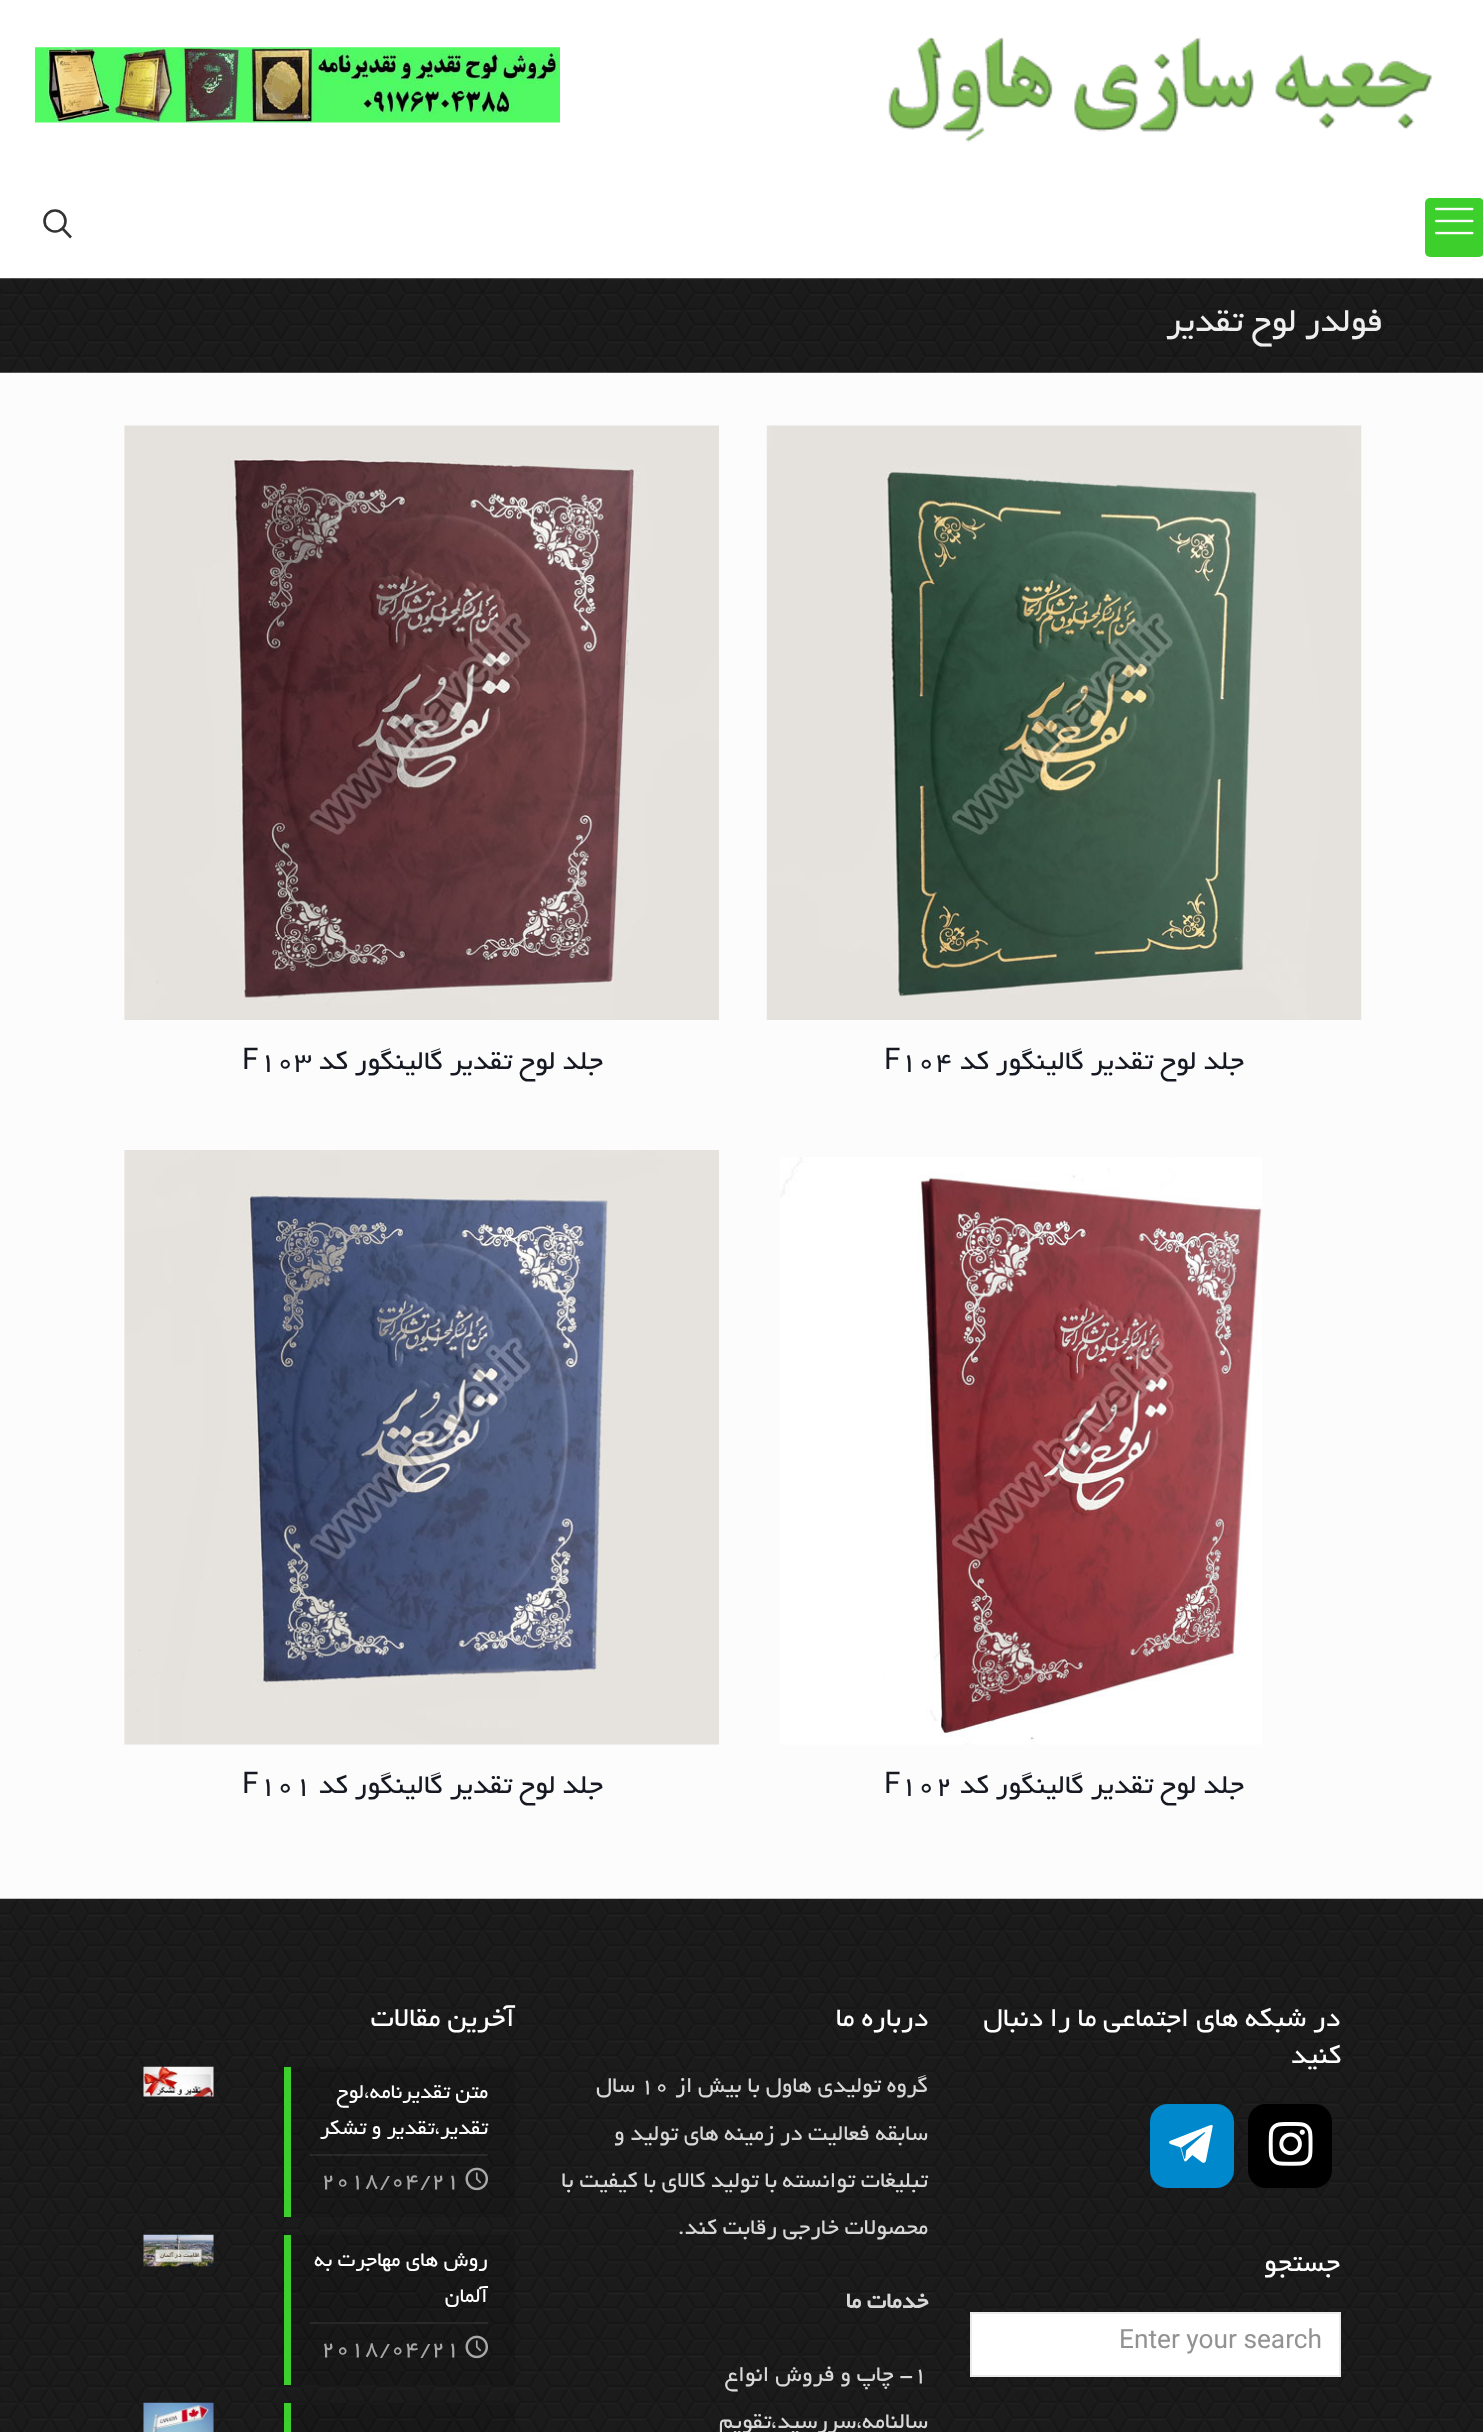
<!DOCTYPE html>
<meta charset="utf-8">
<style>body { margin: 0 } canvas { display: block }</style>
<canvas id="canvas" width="1483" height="2432"></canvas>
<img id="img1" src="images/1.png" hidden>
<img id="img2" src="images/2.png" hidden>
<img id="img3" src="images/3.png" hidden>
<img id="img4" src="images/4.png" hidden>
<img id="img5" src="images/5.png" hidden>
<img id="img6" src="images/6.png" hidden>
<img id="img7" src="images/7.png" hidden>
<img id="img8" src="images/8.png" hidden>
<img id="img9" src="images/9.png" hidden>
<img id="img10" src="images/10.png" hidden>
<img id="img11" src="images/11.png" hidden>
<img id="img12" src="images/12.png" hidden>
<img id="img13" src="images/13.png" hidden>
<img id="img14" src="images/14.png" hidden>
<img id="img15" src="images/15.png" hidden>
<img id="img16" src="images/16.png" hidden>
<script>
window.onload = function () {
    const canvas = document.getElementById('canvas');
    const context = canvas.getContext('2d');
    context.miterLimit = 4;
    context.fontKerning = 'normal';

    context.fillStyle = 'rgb(252, 252, 252)';
    context.fillRect(0, 0, 1483, 2432);
    context.fillStyle = 'rgb(255, 255, 255)';
    context.fillRect(0, 0, 1483, 278);
    context.drawImage(document.getElementById('img1'), 888, 37, 544, 106);
    context.drawImage(document.getElementById('img2'), 35, 47, 525, 76);
    context.fillStyle = 'rgb(61, 207, 44)';
    context.beginPath();
    context.roundRect(1425, 198, 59, 59, 5);
    context.fill();
    context.drawImage(document.getElementById('img3'), 1435, 207, 39, 28);
    context.beginPath();
    context.arc(55, 221, 10.5, 0, 2 * Math.PI);
    context.strokeStyle = 'rgb(51, 51, 51)';
    context.lineWidth = 2.6;
    context.stroke();
    context.beginPath();
    context.moveTo(62.5, 228.5);
    context.lineTo(71, 237.5);
    context.stroke();
    context.drawImage(document.getElementById('img4'), 0, 278, 1483, 95);
    context.drawImage(document.getElementById('img5'), 766, 425, 596, 595);
    context.drawImage(document.getElementById('img6'), 124, 425, 595, 595);
    context.drawImage(document.getElementById('img7'), 780, 1157, 482, 588);
    context.drawImage(document.getElementById('img8'), 124, 1150, 595, 595);
    context.drawImage(document.getElementById('img9'), 0, 1898, 1483, 534);
    context.fillStyle = 'rgb(0, 0, 0)';
    context.beginPath();
    context.roundRect(1248, 2104, 84, 84, 18);
    context.fill();
    context.drawImage(document.getElementById('img10'), 1268, 2122, 45, 44);
    context.fillStyle = 'rgb(0, 136, 204)';
    context.beginPath();
    context.roundRect(1150, 2104, 84, 84, 18);
    context.fill();
    context.drawImage(document.getElementById('img11'), 1169, 2125, 44, 38);
    context.fillStyle = 'rgb(255, 255, 255)';
    context.beginPath();
    context.rect(971, 2313, 369, 63);
    context.fill();
    context.strokeStyle = 'rgb(235, 235, 235)';
    context.lineWidth = 2;
    context.stroke();
    context.drawImage(document.getElementById('img12'), 143, 2066, 71, 31);
    context.fillStyle = 'rgba(0, 0, 0, 0.1)';
    context.fillRect(291, 2067, 224, 150);
    context.fillStyle = 'rgba(255, 255, 255, 0.08)';
    context.fillRect(310, 2154, 178, 2);
    context.fillStyle = 'rgb(61, 207, 44)';
    context.fillRect(284, 2067, 7, 150);
    context.drawImage(document.getElementById('img13'), 465, 2167, 23, 24);
    context.fillStyle = 'rgba(0, 0, 0, 0.1)';
    context.fillRect(291, 2235, 224, 150);
    context.fillStyle = 'rgba(255, 255, 255, 0.08)';
    context.fillRect(310, 2322, 178, 2);
    context.fillStyle = 'rgb(61, 207, 44)';
    context.fillRect(284, 2235, 7, 150);
    context.drawImage(document.getElementById('img14'), 465, 2335, 23, 24);
    context.drawImage(document.getElementById('img15'), 143, 2234, 71, 33);
    context.fillStyle = 'rgba(0, 0, 0, 0.1)';
    context.fillRect(291, 2403, 224, 29);
    context.fillStyle = 'rgb(61, 207, 44)';
    context.fillRect(284, 2403, 7, 29);
    context.drawImage(document.getElementById('img16'), 143, 2402, 71, 30);
    context.letterSpacing = '1.75px';
    context.wordSpacing = '-2px';
    context.direction = 'rtl';
    context.font = '36.75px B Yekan';
    context.fillStyle = 'rgb(240, 239, 239)';
    context.fillText('فولدر لوح تقدیر', 1383, 331);
    context.letterSpacing = '0px';
    context.wordSpacing = '0px';
    context.font = '29.75px B Yekan';
    context.fillStyle = 'rgb(22, 25, 34)';
    context.fillText('جلد لوح تقدیر گالینگور کد', 1244, 1069);
    context.direction = 'ltr';
    context.fillText('104', 900, 1069);
    context.font = '29.75px Roboto';
    context.fillText('F', 884, 1069);
    context.direction = 'rtl';
    context.font = '29.75px B Yekan';
    context.fillText('جلد لوح تقدیر گالینگور کد', 603, 1069);
    context.direction = 'ltr';
    context.fillText('103', 259, 1069);
    context.font = '29.75px Roboto';
    context.fillText('F', 242, 1069);
    context.direction = 'rtl';
    context.font = '29.75px B Yekan';
    context.fillText('جلد لوح تقدیر گالینگور کد', 1244, 1793);
    context.direction = 'ltr';
    context.fillText('102', 900, 1793);
    context.font = '29.75px Roboto';
    context.fillText('F', 884, 1793);
    context.direction = 'rtl';
    context.font = '29.75px B Yekan';
    context.fillText('جلد لوح تقدیر گالینگور کد', 603, 1793);
    context.direction = 'ltr';
    context.fillText('101', 259, 1793);
    context.font = '29.75px Roboto';
    context.fillText('F', 242, 1793);
    context.direction = 'rtl';
    context.font = '29.75px B Yekan';
    context.fillStyle = 'rgb(255, 255, 255)';
    context.fillText('در شبکه های اجتماعی ما را دنبال', 1340, 2026);
    context.fillText('کنید', 1341, 2063);
    context.fillText('جستجو', 1340, 2271);
    context.direction = 'ltr';
    context.font = '26.25px Roboto';
    context.fillStyle = 'rgb(146, 146, 146)';
    context.fillText('Enter your search', 1119, 2348);
    context.direction = 'rtl';
    context.font = '29.75px B Yekan';
    context.fillStyle = 'rgb(255, 255, 255)';
    context.fillText('درباره ما', 928, 2026);
    context.font = '24.5px B Yekan';
    context.fillStyle = 'rgb(216, 216, 216)';
    context.fillText('گروه تولیدی هاول با بیش از', 928, 2092);
    context.direction = 'ltr';
    context.fillText('10', 640, 2092);
    context.direction = 'rtl';
    context.fillText('سال', 635, 2092);
    context.fillText('سابقه فعالیت در زمینه های تولید و', 928, 2140);
    context.fillText('تبلیغات توانسته با تولید کالای با کیفیت با', 928, 2187);
    context.fillText('محصولات خارجی رقابت کند.', 928, 2234);
    context.font = 'bold 24.5px B Yekan';
    context.fillText('خدمات ما', 928, 2308);
    context.direction = 'ltr';
    context.font = '24.5px B Yekan';
    context.fillText('1', 913, 2381);
    context.direction = 'rtl';
    context.fillText('- چاپ و فروش انواع', 913, 2381);
    context.fillText('سالنامه،سررسید،تقویم', 928, 2428);
    context.font = '29.75px B Yekan';
    context.fillStyle = 'rgb(255, 255, 255)';
    context.fillText('آخرین مقالات', 515, 2026);
    context.font = '22.75px B Yekan';
    context.fillText('متن تقدیرنامه،لوح', 488, 2098);
    context.fillText('تقدیر،تقدیر و تشکر', 488, 2134);
    context.direction = 'ltr';
    context.font = '24.5px B Yekan';
    context.fillStyle = 'rgb(168, 168, 168)';
    context.fillText('2018/04/21', 321, 2187);
    context.direction = 'rtl';
    context.font = '22.75px B Yekan';
    context.fillStyle = 'rgb(255, 255, 255)';
    context.fillText('روش های مهاجرت به', 488, 2266);
    context.fillText('آلمان', 488, 2302);
    context.direction = 'ltr';
    context.font = '24.5px B Yekan';
    context.fillStyle = 'rgb(168, 168, 168)';
    context.fillText('2018/04/21', 321, 2355);
};
</script>
